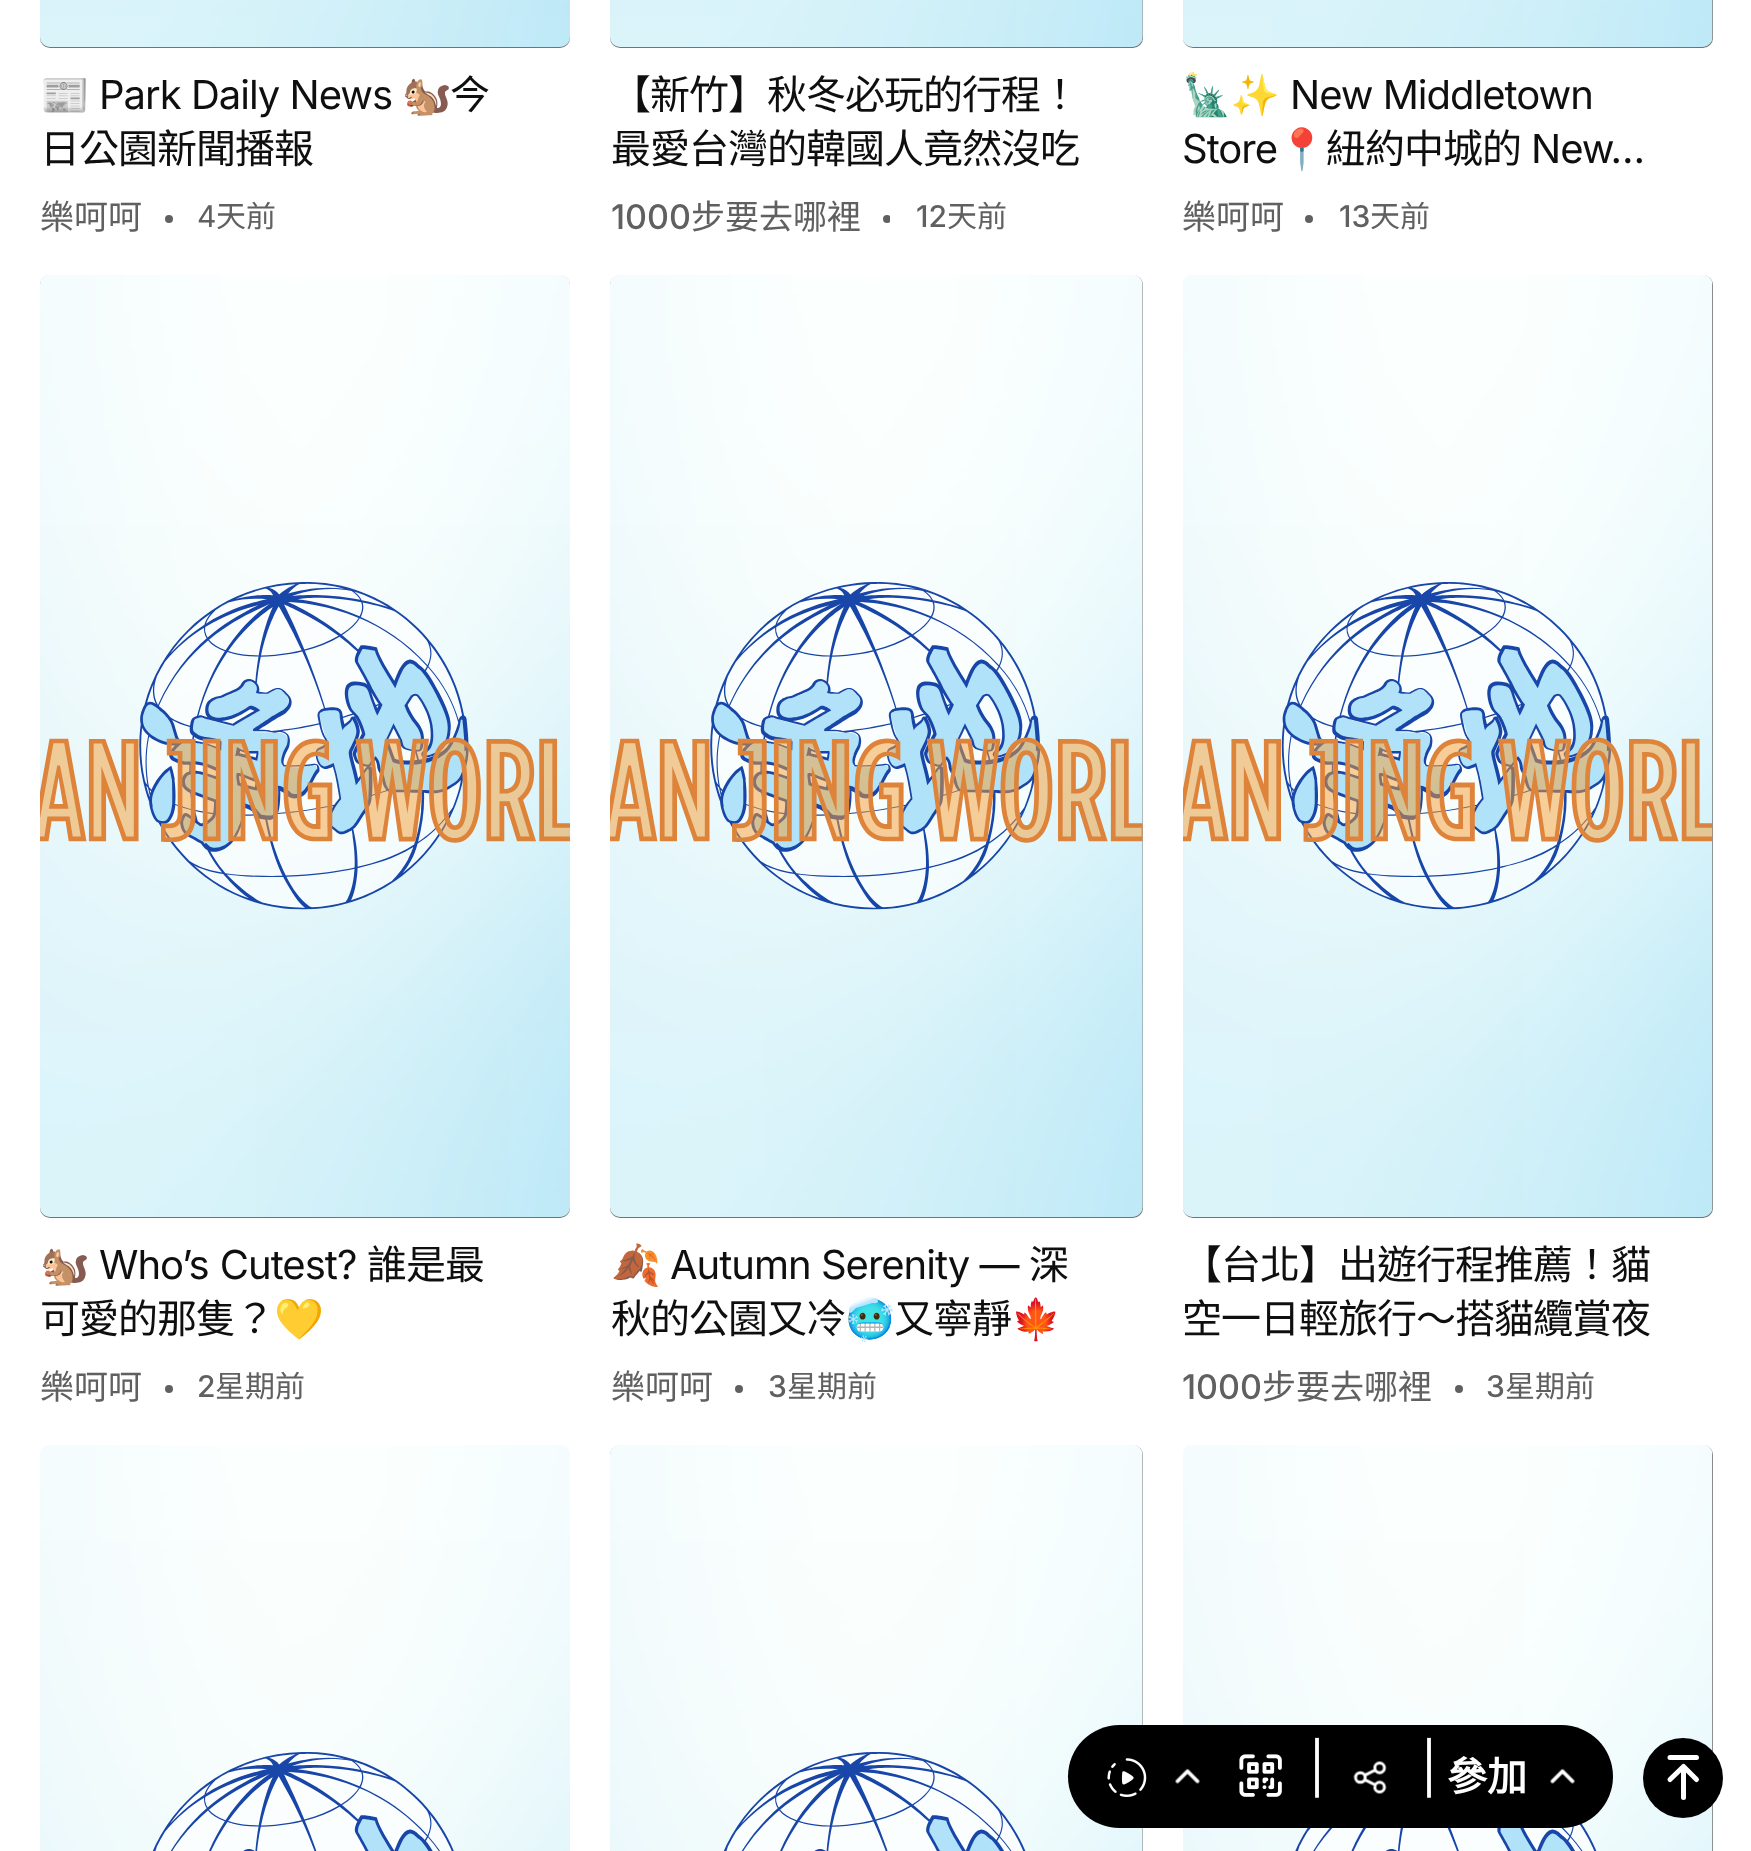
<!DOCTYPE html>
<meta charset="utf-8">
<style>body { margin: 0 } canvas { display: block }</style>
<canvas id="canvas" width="1751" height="1851"></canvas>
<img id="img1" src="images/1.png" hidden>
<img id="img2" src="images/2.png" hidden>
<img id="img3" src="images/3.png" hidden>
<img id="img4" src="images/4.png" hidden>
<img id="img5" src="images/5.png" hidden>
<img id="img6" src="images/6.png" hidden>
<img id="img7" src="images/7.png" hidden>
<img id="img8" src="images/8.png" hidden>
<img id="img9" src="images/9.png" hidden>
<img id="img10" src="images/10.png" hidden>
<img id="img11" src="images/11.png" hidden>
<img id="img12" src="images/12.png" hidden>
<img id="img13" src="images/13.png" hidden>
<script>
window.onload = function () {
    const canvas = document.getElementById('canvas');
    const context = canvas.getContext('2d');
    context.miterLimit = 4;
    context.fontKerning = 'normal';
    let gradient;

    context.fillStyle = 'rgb(255, 255, 255)';
    context.fillRect(0, 0, 1751, 1851);
    gradient = context.createLinearGradient(305, -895, 305, 48);
    gradient.addColorStop(0, 'rgb(89, 89, 89)');
    gradient.addColorStop(1, 'rgb(115, 115, 115)');
    context.fillStyle = gradient;
    context.beginPath();
    context.roundRect(40, -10, 530, 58, 10);
    context.fill();
    context.drawImage(document.getElementById('img1'), 40, 0, 530, 47);
    context.fillStyle = 'rgb(96, 96, 96)';
    context.beginPath();
    context.arc(169, 219, 4, 0, 2 * Math.PI);
    context.fill();
    gradient = context.createLinearGradient(876, -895, 876, 48);
    gradient.addColorStop(0, 'rgb(89, 89, 89)');
    gradient.addColorStop(1, 'rgb(115, 115, 115)');
    context.fillStyle = gradient;
    context.beginPath();
    context.roundRect(610, -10, 533, 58, 10);
    context.fill();
    context.drawImage(document.getElementById('img2'), 610, 0, 533, 47);
    context.save();
    context.beginPath();
    context.rect(610, 198, 280, 40);
    context.clip();
    context.fillStyle = 'rgb(96, 96, 96)';
    context.beginPath();
    context.arc(887, 219, 4, 0, 2 * Math.PI);
    context.fill();
    context.restore();
    gradient = context.createLinearGradient(1448, -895, 1448, 48);
    gradient.addColorStop(0, 'rgb(89, 89, 89)');
    gradient.addColorStop(1, 'rgb(115, 115, 115)');
    context.fillStyle = gradient;
    context.beginPath();
    context.roundRect(1183, -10, 530, 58, 10);
    context.fill();
    context.drawImage(document.getElementById('img3'), 1183, 0, 530, 47);
    context.fillStyle = 'rgb(96, 96, 96)';
    context.beginPath();
    context.arc(1309, 219, 4, 0, 2 * Math.PI);
    context.fill();
    gradient = context.createLinearGradient(305, 275, 305, 1218);
    gradient.addColorStop(0, 'rgb(90, 90, 90)');
    gradient.addColorStop(1, 'rgb(115, 115, 115)');
    context.fillStyle = gradient;
    context.beginPath();
    context.roundRect(40, 275, 530, 943, 10);
    context.fill();
    context.drawImage(document.getElementById('img4'), 40, 275, 530, 942);
    context.fillStyle = 'rgb(96, 96, 96)';
    context.beginPath();
    context.arc(169, 1389, 4, 0, 2 * Math.PI);
    context.fill();
    gradient = context.createLinearGradient(876, 275, 876, 1218);
    gradient.addColorStop(0, 'rgb(90, 90, 90)');
    gradient.addColorStop(1, 'rgb(115, 115, 115)');
    context.fillStyle = gradient;
    context.beginPath();
    context.roundRect(610, 275, 533, 943, 10);
    context.fill();
    context.drawImage(document.getElementById('img5'), 610, 275, 533, 942);
    context.fillStyle = 'rgb(96, 96, 96)';
    context.beginPath();
    context.arc(739, 1389, 4, 0, 2 * Math.PI);
    context.fill();
    gradient = context.createLinearGradient(1448, 275, 1448, 1218);
    gradient.addColorStop(0, 'rgb(90, 90, 90)');
    gradient.addColorStop(1, 'rgb(115, 115, 115)');
    context.fillStyle = gradient;
    context.beginPath();
    context.roundRect(1183, 275, 530, 943, 10);
    context.fill();
    context.drawImage(document.getElementById('img6'), 1183, 275, 530, 942);
    context.fillStyle = 'rgb(96, 96, 96)';
    context.beginPath();
    context.arc(1459, 1389, 4, 0, 2 * Math.PI);
    context.fill();
    context.drawImage(document.getElementById('img7'), 40, 1445, 530, 406);
    gradient = context.createLinearGradient(876, 1445, 876, 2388);
    gradient.addColorStop(0, 'rgb(89, 89, 89)');
    gradient.addColorStop(1, 'rgb(115, 115, 115)');
    context.fillStyle = gradient;
    context.beginPath();
    context.roundRect(610, 1445, 533, 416, 10);
    context.fill();
    context.drawImage(document.getElementById('img8'), 610, 1445, 533, 406);
    gradient = context.createLinearGradient(1448, 1445, 1448, 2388);
    gradient.addColorStop(0, 'rgb(89, 89, 89)');
    gradient.addColorStop(1, 'rgb(115, 115, 115)');
    context.fillStyle = gradient;
    context.beginPath();
    context.roundRect(1183, 1445, 530, 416, 10);
    context.fill();
    context.drawImage(document.getElementById('img9'), 1183, 1445, 530, 406);
    context.fillStyle = 'rgb(0, 0, 0)';
    context.beginPath();
    context.roundRect(1068, 1725, 545, 103, 51.5);
    context.fill();
    context.drawImage(document.getElementById('img10'), 1107, 1758, 40, 39);
    context.drawImage(document.getElementById('img11'), 1175, 1768, 25, 16);
    context.drawImage(document.getElementById('img12'), 1239, 1754, 43, 43);
    context.drawImage(document.getElementById('img13'), 1353, 1761, 34, 33);
    context.drawImage(document.getElementById('img11'), 1550, 1768, 25, 16);
    context.beginPath();
    context.arc(1683, 1778, 40, 0, 2 * Math.PI);
    context.fill();
    context.beginPath();
    context.moveTo(1683.5, 1766.5);
    context.lineTo(1683.5, 1797.5);
    context.moveTo(1670, 1779.5);
    context.lineTo(1683.5, 1766.5);
    context.lineTo(1696.5, 1779.5);
    context.moveTo(1670, 1757.5);
    context.lineTo(1696.5, 1757.5);
    context.strokeStyle = 'rgb(255, 255, 255)';
    context.lineWidth = 5;
    context.lineCap = 'round';
    context.lineJoin = 'round';
    context.stroke();
    context.letterSpacing = '-1px';
    context.font = '40px Noto Color Emoji';
    context.fillStyle = 'rgb(15, 15, 15)';
    context.fillText('📰', 40, 109);
    context.font = '40px Inter';
    context.fillText('Park Daily News', 99, 109);
    context.font = '40px Noto Color Emoji';
    context.fillText('🐿️', 402, 109);
    context.font = '40px Noto Sans CJK TC';
    context.fillText('今', 450, 109);
    context.fillText('日公園新聞播報', 40, 163);
    context.letterSpacing = '0px';
    context.font = '34px Noto Sans CJK TC';
    context.fillStyle = 'rgb(96, 96, 96)';
    context.fillText('樂呵呵', 40, 229);
    context.font = '30px Inter';
    context.fillText('4', 197, 227);
    context.font = '30px Noto Sans CJK TC';
    context.fillText('天前', 216, 227);
    context.letterSpacing = '-1px';
    context.font = '40px Noto Sans CJK TC';
    context.fillStyle = 'rgb(15, 15, 15)';
    context.fillText('【新竹】秋冬必玩的行程！', 611, 109);
    context.fillText('最愛台灣的韓國人竟然沒吃', 611, 163);
    context.letterSpacing = '0px';
    context.font = '500 34px Inter';
    context.fillStyle = 'rgb(96, 96, 96)';
    context.fillText('1000', 611, 229);
    context.font = '34px Noto Sans CJK TC';
    context.fillText('步要去哪裡', 691, 229);
    context.font = '500 30px Inter';
    context.fillText('12', 916, 227);
    context.font = '30px Noto Sans CJK TC';
    context.fillText('天前', 947, 227);
    context.save();
    context.beginPath();
    context.rect(1183, 68, 470, 110);
    context.clip();
    context.letterSpacing = '-1px';
    context.font = '40px Noto Color Emoji';
    context.fillStyle = 'rgb(15, 15, 15)';
    context.fillText('🗽✨', 1182, 109);
    context.restore();
    context.letterSpacing = '-1px';
    context.font = '40px Inter';
    context.fillStyle = 'rgb(15, 15, 15)';
    context.fillText('New Middletown', 1290, 109);
    context.fillText('Store', 1182, 163);
    context.font = '40px Noto Color Emoji';
    context.fillText('📍', 1277, 163);
    context.font = '40px Noto Sans CJK TC';
    context.fillText('紐約中城的', 1326, 163);
    context.font = '40px Inter';
    context.fillText('New…', 1531, 163);
    context.letterSpacing = '0px';
    context.font = '34px Noto Sans CJK TC';
    context.fillStyle = 'rgb(96, 96, 96)';
    context.fillText('樂呵呵', 1182, 229);
    context.font = '500 30px Inter';
    context.fillText('13', 1339, 227);
    context.font = '30px Noto Sans CJK TC';
    context.fillText('天前', 1370, 227);
    context.letterSpacing = '-1px';
    context.font = '40px Noto Color Emoji';
    context.fillStyle = 'rgb(15, 15, 15)';
    context.fillText('🐿️', 40, 1279);
    context.wordSpacing = '1px';
    context.font = '40px Inter';
    context.fillText('Who’s Cutest?', 99, 1279);
    context.wordSpacing = '0px';
    context.font = '40px Noto Sans CJK TC';
    context.fillText('誰是最', 367, 1279);
    context.fillText('可愛的那隻？', 40, 1333);
    context.font = '40px Noto Color Emoji';
    context.fillText('💛', 274, 1333);
    context.letterSpacing = '0px';
    context.font = '34px Noto Sans CJK TC';
    context.fillStyle = 'rgb(96, 96, 96)';
    context.fillText('樂呵呵', 40, 1399);
    context.font = '500 30px Inter';
    context.fillText('2', 197, 1397);
    context.font = '30px Noto Sans CJK TC';
    context.fillText('星期前', 215, 1397);
    context.letterSpacing = '-1px';
    context.font = '40px Noto Color Emoji';
    context.fillStyle = 'rgb(15, 15, 15)';
    context.fillText('🍂', 611, 1279);
    context.font = '40px Inter';
    context.fillText('Autumn Serenity —', 670, 1279);
    context.font = '40px Noto Sans CJK TC';
    context.fillText('深', 1029, 1279);
    context.fillText('秋的公園又冷', 611, 1333);
    context.font = '40px Noto Color Emoji';
    context.fillText('🥶', 845, 1333);
    context.font = '40px Noto Sans CJK TC';
    context.fillText('又寧靜', 894, 1333);
    context.font = '40px Noto Color Emoji';
    context.fillText('🍁', 1011, 1333);
    context.letterSpacing = '0px';
    context.font = '34px Noto Sans CJK TC';
    context.fillStyle = 'rgb(96, 96, 96)';
    context.fillText('樂呵呵', 611, 1399);
    context.font = '500 30px Inter';
    context.fillText('3', 768, 1397);
    context.font = '30px Noto Sans CJK TC';
    context.fillText('星期前', 787, 1397);
    context.letterSpacing = '-1px';
    context.font = '40px Noto Sans CJK TC';
    context.fillStyle = 'rgb(15, 15, 15)';
    context.fillText('【台北】出遊行程推薦！貓', 1182, 1279);
    context.fillText('空一日輕旅行～搭貓纜賞夜', 1182, 1333);
    context.letterSpacing = '0px';
    context.font = '500 34px Inter';
    context.fillStyle = 'rgb(96, 96, 96)';
    context.fillText('1000', 1182, 1399);
    context.font = '34px Noto Sans CJK TC';
    context.fillText('步要去哪裡', 1262, 1399);
    context.font = '500 30px Inter';
    context.fillText('3', 1486, 1397);
    context.font = '30px Noto Sans CJK TC';
    context.fillText('星期前', 1505, 1397);
    context.font = '50px "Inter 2"';
    context.fillStyle = 'rgb(255, 255, 255)';
    context.fillText('|', 1309, 1786);
    context.fillText('|', 1421, 1786);
    context.font = 'bold 40px Noto Sans CJK TC';
    context.fillText('參加', 1447, 1791);
};
</script>
